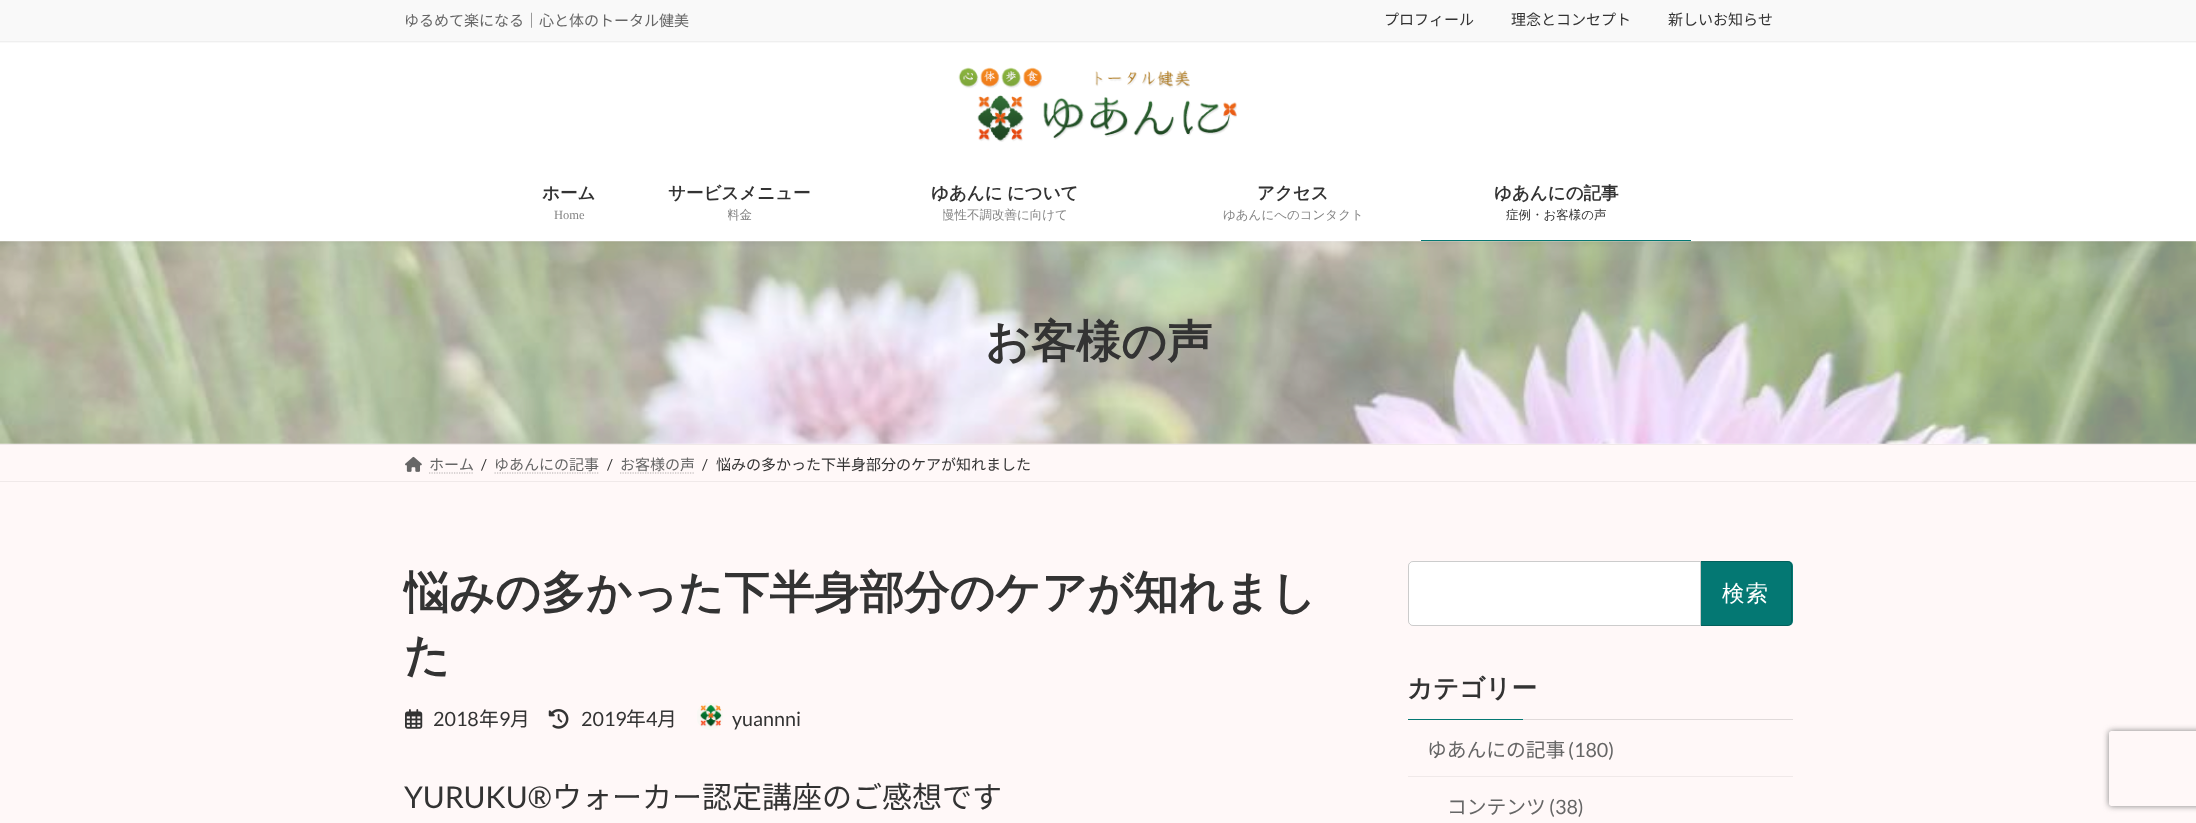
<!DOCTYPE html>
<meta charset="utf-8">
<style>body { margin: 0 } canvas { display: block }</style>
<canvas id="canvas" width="2196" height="823"></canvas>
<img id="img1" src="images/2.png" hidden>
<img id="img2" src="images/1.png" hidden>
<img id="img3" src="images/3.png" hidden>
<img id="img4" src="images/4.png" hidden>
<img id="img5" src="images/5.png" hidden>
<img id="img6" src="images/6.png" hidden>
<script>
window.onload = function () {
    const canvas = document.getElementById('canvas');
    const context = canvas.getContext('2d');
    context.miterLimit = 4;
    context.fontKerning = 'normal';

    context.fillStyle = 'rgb(255, 248, 248)';
    context.fillRect(0, 0, 2196, 823);
    context.drawImage(document.getElementById('img1'), 0, 241, 2196, 203);
    context.fillStyle = 'rgba(0, 0, 0, 0.05)';
    context.filter = 'blur(2px)';
    context.beginPath();
    context.rect(0, -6, 2196, 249);
    context.fill();
    context.filter = 'none';
    context.fillStyle = 'rgb(255, 255, 255)';
    context.fillRect(0, 43, 2196, 198);
    context.fillStyle = 'rgb(249, 249, 249)';
    context.fillRect(0, 0, 2196, 43);
    context.fillStyle = 'rgb(239, 239, 239)';
    context.fillRect(0, 41, 2196, 1);
    context.drawImage(document.getElementById('img2'), 958, 67, 279, 75);
    context.fillStyle = 'rgb(4, 120, 115)';
    context.fillRect(1421, 240, 270, 1);
    context.fillStyle = 'rgb(240, 233, 233)';
    context.fillRect(0, 444, 2196, 1);
    context.fillRect(0, 481, 2196, 1);
    context.drawImage(document.getElementById('img3'), 405, 456, 17, 16);
    context.beginPath();
    context.moveTo(429, 473);
    context.lineTo(473.5, 473);
    context.strokeStyle = 'rgb(179, 174, 174)';
    context.lineWidth = 1.2;
    context.setLineDash([1.25, 1.25]);
    context.stroke();
    context.beginPath();
    context.moveTo(494.5, 473);
    context.lineTo(599.5, 473);
    context.stroke();
    context.beginPath();
    context.moveTo(620, 473);
    context.lineTo(695, 473);
    context.stroke();
    context.drawImage(document.getElementById('img4'), 405, 709, 18, 20);
    context.drawImage(document.getElementById('img5'), 548, 709, 21, 20);
    context.drawImage(document.getElementById('img6'), 697, 703, 26, 27);
    context.fillStyle = 'rgb(255, 255, 255)';
    context.beginPath();
    context.roundRect(1408, 561, 293, 65, [5, 0, 0, 5]);
    context.fill();
    context.beginPath();
    context.roundRect(1408.5, 561.5, 292, 64, [4.5, 0, 0, 4.5]);
    context.strokeStyle = 'rgba(0, 0, 0, 0.2)';
    context.lineWidth = 1;
    context.setLineDash([]);
    context.stroke();
    context.fillStyle = 'rgb(4, 120, 115)';
    context.beginPath();
    context.roundRect(1701, 561, 92, 65, [0, 5, 5, 0]);
    context.fill();
    context.fillStyle = 'rgba(0, 0, 0, 0.2)';
    context.beginPath();
    context.moveTo(1701, 561);
    context.lineTo(1788, 561);
    context.bezierCurveTo(1790, 561, 1792, 563, 1792, 566);
    context.lineTo(1792, 621);
    context.bezierCurveTo(1792, 624, 1790, 626, 1788, 626);
    context.lineTo(1701, 626);
    context.closePath();
    context.moveTo(1701, 562);
    context.lineTo(1788, 562);
    context.bezierCurveTo(1790, 562, 1791, 564, 1791, 566);
    context.lineTo(1791, 621);
    context.bezierCurveTo(1791, 623, 1790, 625, 1788, 625);
    context.lineTo(1701, 625);
    context.closePath();
    context.fill('evenodd');
    context.fillStyle = 'rgb(224, 218, 218)';
    context.fillRect(1523, 719, 270, 1);
    context.fillStyle = 'rgb(4, 120, 115)';
    context.fillRect(1408, 719, 115, 1);
    context.fillStyle = 'rgb(240, 233, 233)';
    context.fillRect(1408, 776, 385, 1);
    context.save();
    context.beginPath();
    context.moveTo(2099, 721);
    context.lineTo(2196, 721);
    context.lineTo(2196, 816);
    context.lineTo(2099, 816);
    context.closePath();
    context.moveTo(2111.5, 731);
    context.lineTo(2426.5, 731);
    context.bezierCurveTo(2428, 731, 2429, 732, 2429, 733.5);
    context.lineTo(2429, 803.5);
    context.bezierCurveTo(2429, 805, 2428, 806, 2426.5, 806);
    context.lineTo(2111.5, 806);
    context.bezierCurveTo(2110, 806, 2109, 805, 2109, 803.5);
    context.lineTo(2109, 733.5);
    context.bezierCurveTo(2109, 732, 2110, 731, 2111.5, 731);
    context.closePath();
    context.clip('evenodd');
    context.fillStyle = 'rgb(128, 128, 128)';
    context.filter = 'blur(3px)';
    context.beginPath();
    context.roundRect(2109, 731, 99, 75, 2.5);
    context.fill();
    context.filter = 'none';
    context.restore();
    context.font = '15px Noto Sans JP';
    context.fillStyle = 'rgb(102, 102, 102)';
    context.fillText('ゆるめて楽になる｜心と体のトータル健美', 404, 26);
    context.fillStyle = 'rgb(51, 51, 51)';
    context.fillText('プロフィール', 1384, 25);
    context.fillText('理念とコンセプト', 1511, 25);
    context.fillText('新しいお知らせ', 1668, 25);
    context.font = 'bold 17.5px WenQuanYi Zen Hei';
    context.fillText('ホーム', 542, 199);
    context.font = '12.5px Liberation Serif';
    context.fillStyle = 'rgb(133, 133, 133)';
    context.fillText('Home', 554, 219);
    context.font = 'bold 17.5px WenQuanYi Zen Hei';
    context.fillStyle = 'rgb(51, 51, 51)';
    context.fillText('サービスメニュー', 668, 199);
    context.save();
    context.beginPath();
    context.rect(728, 206, 25, 18);
    context.clip();
    context.font = '500 12.5px WenQuanYi Zen Hei';
    context.fillStyle = 'rgb(133, 133, 133)';
    context.fillText('料金', 727, 219);
    context.restore();
    context.wordSpacing = '-1px';
    context.fillText('ゆあんに について', 931, 199);
    context.save();
    context.beginPath();
    context.rect(943, 206, 125, 18);
    context.clip();
    context.wordSpacing = '0px';
    context.font = '500 12.5px WenQuanYi Zen Hei';
    context.fillStyle = 'rgb(133, 133, 133)';
    context.fillText('慢性不調改善に向けて', 942, 219);
    context.restore();
    context.wordSpacing = '0px';
    context.fillText('アクセス', 1257, 199);
    context.font = '500 12.5px WenQuanYi Zen Hei';
    context.fillStyle = 'rgb(133, 133, 133)';
    context.fillText('ゆあんにへのコンタクト', 1223, 219);
    context.font = 'bold 17.5px WenQuanYi Zen Hei';
    context.fillStyle = 'rgb(51, 51, 51)';
    context.fillText('ゆあんにの記事', 1494, 199);
    context.font = '500 12.5px WenQuanYi Zen Hei';
    context.fillText('症例・お客様の声', 1506, 219);
    context.font = 'bold 45px WenQuanYi Zen Hei';
    context.fillText('お客様の声', 985, 357);
    context.font = '15px Noto Sans JP';
    context.fillStyle = 'rgb(102, 102, 102)';
    context.fillText('ホーム', 429, 470);
    context.font = '15px Lato';
    context.fillStyle = 'rgb(51, 51, 51)';
    context.fillText('/', 481, 470);
    context.font = '15px Noto Sans JP';
    context.fillStyle = 'rgb(102, 102, 102)';
    context.fillText('ゆあんにの記事', 494, 470);
    context.font = '15px Lato';
    context.fillStyle = 'rgb(51, 51, 51)';
    context.fillText('/', 607, 470);
    context.font = '15px Noto Sans JP';
    context.fillStyle = 'rgb(102, 102, 102)';
    context.fillText('お客様の声', 620, 470);
    context.font = '15px Lato';
    context.fillStyle = 'rgb(51, 51, 51)';
    context.fillText('/', 702, 470);
    context.font = '15px Noto Sans JP';
    context.fillText('悩みの多かった下半身部分のケアが知れました', 716, 470);
    context.font = 'bold 45px WenQuanYi Zen Hei';
    context.fillText('悩みの多かった下半身部分のケアが知れまし', 404, 608);
    context.fillText('た', 404, 671);
    context.font = '19.75px Lato';
    context.fillText('2018', 433, 726);
    context.font = '19.75px Noto Sans JP';
    context.fillText('年', 479, 726);
    context.font = '19.75px Lato';
    context.fillText('9', 499, 726);
    context.font = '19.75px Noto Sans JP';
    context.fillText('月', 510, 726);
    context.font = '19.75px Lato';
    context.fillText('2019', 581, 726);
    context.font = '19.75px Noto Sans JP';
    context.fillText('年', 626, 726);
    context.font = '19.75px Lato';
    context.fillText('4', 646, 726);
    context.font = '19.75px Noto Sans JP';
    context.fillText('月', 657, 726);
    context.font = '19.75px Lato';
    context.fillText('yuannni', 732, 726);
    context.font = '30px Lato';
    context.fillText('YURUKU®︎', 404, 808);
    context.font = '30px Noto Sans JP';
    context.fillText('ウォーカー認定講座のご感想です', 552, 808);
    context.letterSpacing = '1px';
    context.font = '500 22.5px WenQuanYi Zen Hei';
    context.fillStyle = 'rgb(255, 255, 255)';
    context.fillText('検索', 1722, 601);
    context.letterSpacing = '0px';
    context.font = 'bold 25.5px WenQuanYi Zen Hei';
    context.fillStyle = 'rgb(51, 51, 51)';
    context.fillText('カテゴリー', 1407, 697);
    context.font = '19.75px Noto Sans JP';
    context.fillStyle = 'rgb(102, 102, 102)';
    context.fillText('ゆあんにの記事', 1427, 757);
    context.font = '19.75px Lato';
    context.fillText('(180)', 1568, 757);
    context.font = '19.75px Noto Sans JP';
    context.fillText('コンテンツ', 1447, 814);
    context.font = '19.75px Lato';
    context.fillText('(38)', 1549, 814);
};
</script>
